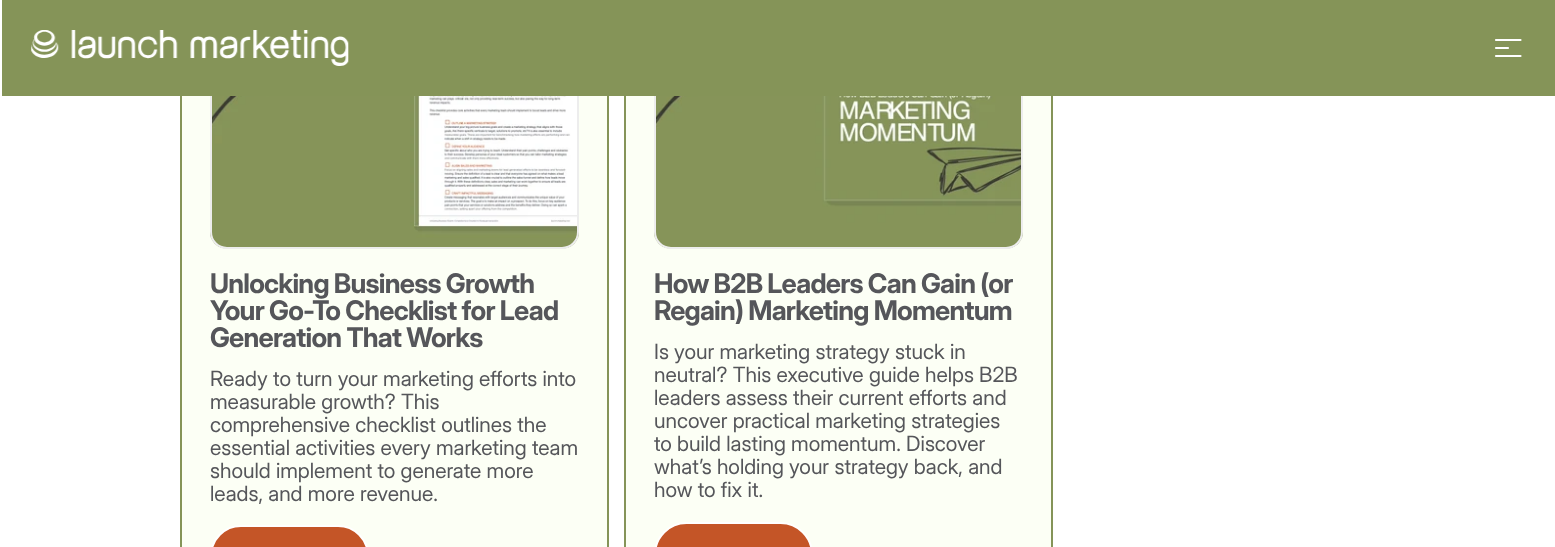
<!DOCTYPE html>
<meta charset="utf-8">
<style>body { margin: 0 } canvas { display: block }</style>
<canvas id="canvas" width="1555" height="547"></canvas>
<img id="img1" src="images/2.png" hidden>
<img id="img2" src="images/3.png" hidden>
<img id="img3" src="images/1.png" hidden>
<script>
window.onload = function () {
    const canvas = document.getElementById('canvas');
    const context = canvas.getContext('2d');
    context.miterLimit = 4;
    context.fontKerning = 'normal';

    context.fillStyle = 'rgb(255, 255, 255)';
    context.fillRect(0, 0, 1555, 547);
    context.fillStyle = 'rgb(252, 255, 245)';
    context.fillRect(182, 96, 425, 451);
    context.drawImage(document.getElementById('img1'), 210, 96, 369, 153);
    context.beginPath();
    context.roundRect(211, 4, 367, 244, 16);
    context.strokeStyle = 'rgb(237, 237, 237)';
    context.lineWidth = 2;
    context.stroke();
    context.fillStyle = 'rgb(196, 85, 39)';
    context.beginPath();
    context.roundRect(211, 526, 157, 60, 36.5);
    context.fill();
    context.strokeStyle = 'rgb(255, 255, 255)';
    context.stroke();
    context.strokeStyle = 'rgb(133, 148, 88)';
    context.strokeRect(181, -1, 427, 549);
    context.fillStyle = 'rgb(252, 255, 245)';
    context.fillRect(626, 96, 425, 451);
    context.drawImage(document.getElementById('img2'), 654, 96, 369, 153);
    context.beginPath();
    context.roundRect(655, 4, 367, 244, 16);
    context.strokeStyle = 'rgb(237, 237, 237)';
    context.stroke();
    context.fillStyle = 'rgb(196, 85, 39)';
    context.beginPath();
    context.roundRect(655, 523, 157, 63, 36.5);
    context.fill();
    context.strokeStyle = 'rgb(255, 255, 255)';
    context.stroke();
    context.strokeStyle = 'rgb(133, 148, 88)';
    context.strokeRect(625, -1, 427, 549);
    context.fillStyle = 'rgb(133, 148, 88)';
    context.fillRect(2, 0, 1553, 96);
    context.drawImage(document.getElementById('img3'), 31, 30, 318, 36);
    context.beginPath();
    context.moveTo(1496, 40);
    context.lineTo(1520.5, 40);
    context.moveTo(1496, 48);
    context.lineTo(1508, 48);
    context.moveTo(1496, 56);
    context.lineTo(1520.5, 56);
    context.strokeStyle = 'rgb(255, 255, 255)';
    context.lineWidth = 2.2;
    context.lineCap = 'round';
    context.lineJoin = 'round';
    context.stroke();
    context.letterSpacing = '-0.75px';
    context.font = 'bold 27px Inter Display';
    context.fillStyle = 'rgb(85, 86, 90)';
    context.fillText('Unlocking Business Growth', 210, 293);
    context.fillText('Your Go-To Checklist for Lead', 210, 320);
    context.fillText('Generation That Works', 210, 347);
    context.letterSpacing = '0px';
    context.font = '21px Inter Display';
    context.fillText('Ready to turn your marketing efforts into', 210, 386);
    context.fillText('measurable growth? This', 210, 409);
    context.fillText('comprehensive checklist outlines the', 210, 432);
    context.fillText('essential activities every marketing team', 210, 455);
    context.fillText('should implement to generate more', 210, 478);
    context.fillText('leads, and more revenue.', 210, 501);
    context.letterSpacing = '-0.75px';
    context.font = 'bold 27px Inter Display';
    context.fillText('How B2B Leaders Can Gain (or', 654, 293);
    context.fillText('Regain) Marketing Momentum', 654, 320);
    context.letterSpacing = '0px';
    context.font = '21px Inter Display';
    context.fillText('Is your marketing strategy stuck in', 654, 359);
    context.fillText('neutral? This executive guide helps B2B', 654, 382);
    context.fillText('leaders assess their current efforts and', 654, 405);
    context.fillText('uncover practical marketing strategies', 654, 428);
    context.fillText('to build lasting momentum. Discover', 654, 451);
    context.fillText('what’s holding your strategy back, and', 654, 474);
    context.fillText('how to fix it.', 654, 497);
};
</script>
